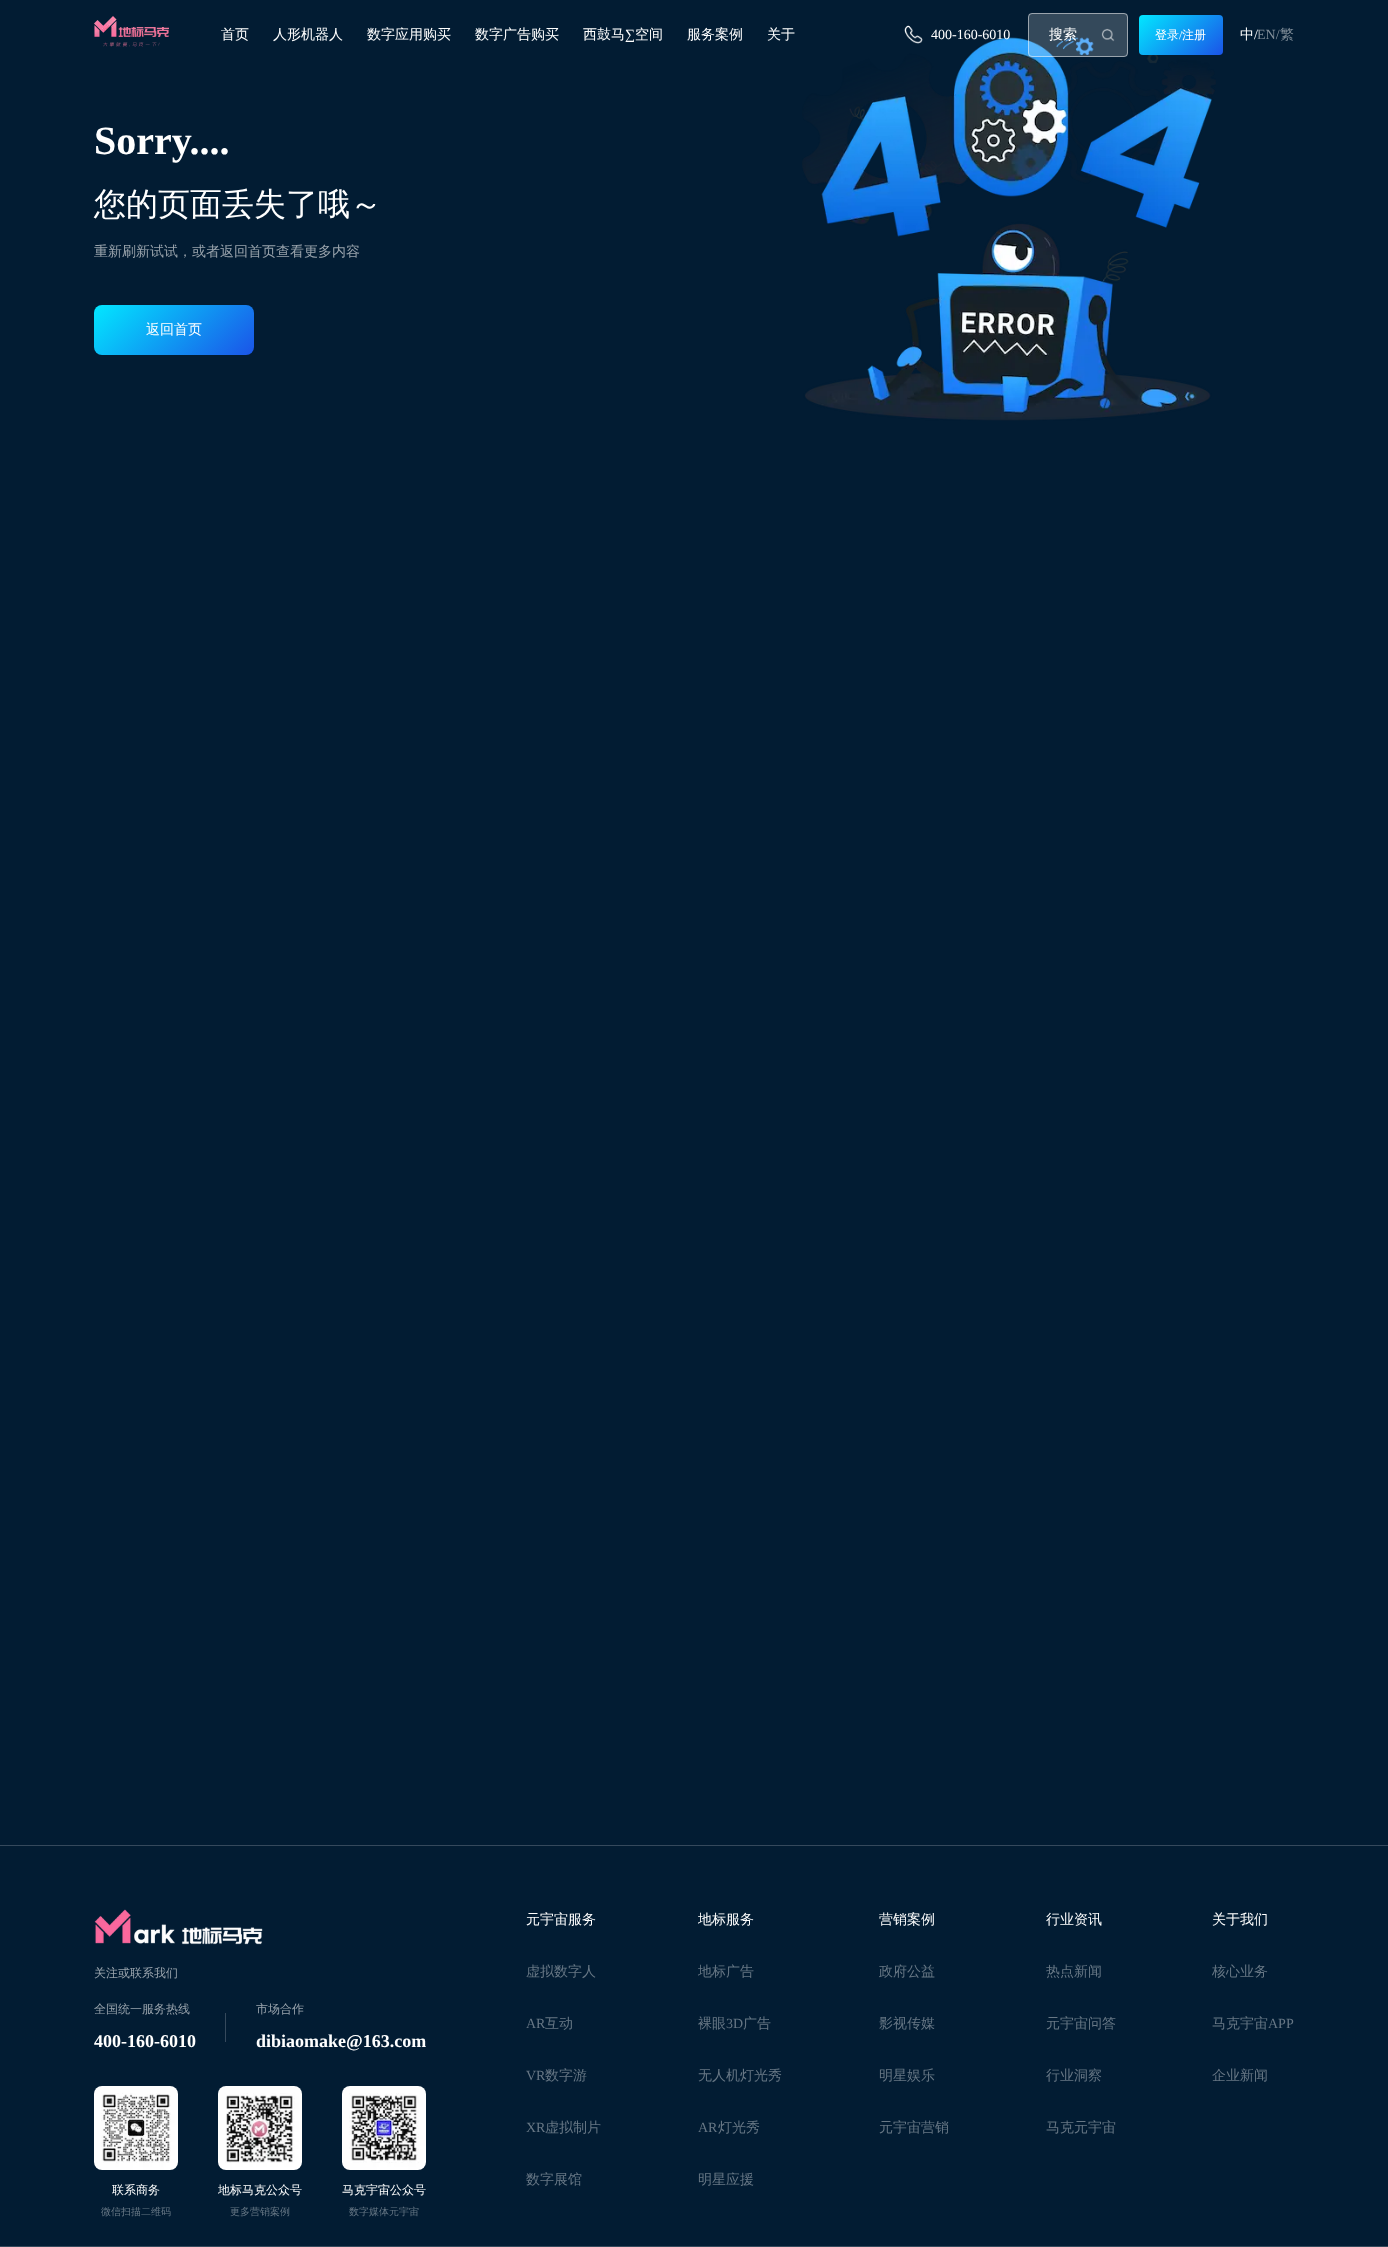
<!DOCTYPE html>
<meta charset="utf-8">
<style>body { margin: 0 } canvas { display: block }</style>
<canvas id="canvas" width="1388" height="2247"></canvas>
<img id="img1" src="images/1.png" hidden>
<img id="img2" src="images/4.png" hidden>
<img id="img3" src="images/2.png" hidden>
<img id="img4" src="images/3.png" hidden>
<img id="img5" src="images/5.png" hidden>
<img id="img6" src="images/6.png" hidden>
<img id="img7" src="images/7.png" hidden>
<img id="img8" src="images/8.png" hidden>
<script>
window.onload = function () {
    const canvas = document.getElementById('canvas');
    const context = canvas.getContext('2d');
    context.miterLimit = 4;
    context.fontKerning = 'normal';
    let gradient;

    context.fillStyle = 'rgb(2, 28, 51)';
    context.fillRect(0, 0, 1388, 2247);
    context.drawImage(document.getElementById('img1'), 94, 16, 75, 31);
    context.drawImage(document.getElementById('img2'), 802, 37, 414, 384);
    context.drawImage(document.getElementById('img3'), 904, 25, 19, 19);
    context.fillStyle = 'rgba(255, 255, 255, 0.2)';
    context.beginPath();
    context.roundRect(1028, 13, 100, 44, 4);
    context.fill();
    context.beginPath();
    context.roundRect(1028.5, 13.5, 99, 43, 3.5);
    context.strokeStyle = 'rgba(255, 255, 255, 0.5)';
    context.stroke();
    context.drawImage(document.getElementById('img4'), 1101, 28, 14, 14);
    gradient = context.createLinearGradient(1151, 3.7, 1211, 66);
    gradient.addColorStop(0, 'rgb(2, 231, 255)');
    gradient.addColorStop(1, 'rgb(27, 84, 232)');
    context.fillStyle = gradient;
    context.beginPath();
    context.roundRect(1139, 15, 84, 40, 4);
    context.fill();
    gradient = context.createLinearGradient(123, 277, 225, 383);
    gradient.addColorStop(0, 'rgb(2, 231, 255)');
    gradient.addColorStop(1, 'rgb(27, 84, 232)');
    context.fillStyle = gradient;
    context.beginPath();
    context.roundRect(94, 305, 160, 50, 8);
    context.fill();
    context.fillStyle = 'rgb(53, 73, 92)';
    context.fillRect(0, 1845, 1388, 1);
    context.fillRect(0, 2246, 1388, 1);
    context.drawImage(document.getElementById('img5'), 94, 1909, 169, 36);
    context.fillRect(225, 2013, 1, 29);
    context.drawImage(document.getElementById('img6'), 94, 2086, 84, 84);
    context.drawImage(document.getElementById('img7'), 218, 2086, 84, 84);
    context.drawImage(document.getElementById('img8'), 342, 2086, 84, 84);
    context.font = '500 14px WenQuanYi Zen Hei';
    context.fillStyle = 'rgb(255, 255, 255)';
    context.fillText('首页', 221, 39);
    context.fillText('人形机器人', 273, 39);
    context.fillText('数字应用购买', 367, 39);
    context.fillText('数字广告购买', 475, 39);
    context.fillText('西鼓马', 583, 39);
    context.font = '14px Liberation Serif';
    context.fillText('∑', 625, 39);
    context.font = '500 14px WenQuanYi Zen Hei';
    context.fillText('空间', 635, 39);
    context.fillText('服务案例', 687, 39);
    context.fillText('关于', 767, 39);
    context.font = '14px Liberation Serif';
    context.fillText('400-160-6010', 931, 39);
    context.font = '500 14px WenQuanYi Zen Hei';
    context.fillText('搜索', 1049, 39);
    context.font = '500 12px WenQuanYi Zen Hei';
    context.fillText('登录', 1155, 39);
    context.font = '12px Liberation Serif';
    context.fillText('/', 1179, 39);
    context.font = '500 12px WenQuanYi Zen Hei';
    context.fillText('注册', 1182, 39);
    context.font = '500 14px WenQuanYi Zen Hei';
    context.fillText('中', 1240, 39);
    context.font = '14px Liberation Serif';
    context.fillText('/', 1254, 39);
    context.fillStyle = 'rgb(129, 142, 153)';
    context.fillText('EN/', 1257, 39);
    context.font = '500 14px WenQuanYi Zen Hei';
    context.fillText('繁', 1280, 39);
    context.font = 'bold 40px Liberation Serif';
    context.fillStyle = 'rgb(255, 255, 255)';
    context.fillText('Sorry....', 94, 154);
    context.font = '500 32px WenQuanYi Zen Hei';
    context.fillText('您的页面丢失了哦～', 94, 215);
    context.font = '500 14px WenQuanYi Zen Hei';
    context.fillStyle = 'rgb(154, 164, 173)';
    context.fillText('重新刷新试试，或者返回首页查看更多内容', 94, 256);
    context.fillStyle = 'rgb(255, 255, 255)';
    context.fillText('返回首页', 146, 334);
    context.font = '500 12px WenQuanYi Zen Hei';
    context.fillStyle = 'rgb(154, 164, 173)';
    context.fillText('关注或联系我们', 94, 1977);
    context.fillText('全国统一服务热线', 94, 2013);
    context.font = 'bold 18px Liberation Serif';
    context.fillStyle = 'rgb(255, 255, 255)';
    context.fillText('400-160-6010', 94, 2047);
    context.font = '500 12px WenQuanYi Zen Hei';
    context.fillStyle = 'rgb(154, 164, 173)';
    context.fillText('市场合作', 256, 2013);
    context.font = 'bold 18px Liberation Serif';
    context.fillStyle = 'rgb(255, 255, 255)';
    context.fillText('dibiaomake@163.com', 256, 2047);
    context.font = '500 12px WenQuanYi Zen Hei';
    context.fillText('联系商务', 112, 2194);
    context.font = '500 10px WenQuanYi Zen Hei';
    context.fillStyle = 'rgb(103, 119, 133)';
    context.fillText('微信扫描二维码', 101, 2215);
    context.font = '500 12px WenQuanYi Zen Hei';
    context.fillStyle = 'rgb(255, 255, 255)';
    context.fillText('地标马克公众号', 218, 2194);
    context.font = '500 10px WenQuanYi Zen Hei';
    context.fillStyle = 'rgb(103, 119, 133)';
    context.fillText('更多营销案例', 230, 2215);
    context.font = '500 12px WenQuanYi Zen Hei';
    context.fillStyle = 'rgb(255, 255, 255)';
    context.fillText('马克宇宙公众号', 342, 2194);
    context.font = '500 10px WenQuanYi Zen Hei';
    context.fillStyle = 'rgb(103, 119, 133)';
    context.fillText('数字媒体元宇宙', 349, 2215);
    context.font = '500 14px WenQuanYi Zen Hei';
    context.fillStyle = 'rgb(255, 255, 255)';
    context.fillText('元宇宙服务', 526, 1924);
    context.fillStyle = 'rgb(103, 119, 133)';
    context.fillText('虚拟数字人', 526, 1976);
    context.font = '14px Liberation Serif';
    context.fillText('AR', 526, 2028);
    context.font = '500 14px WenQuanYi Zen Hei';
    context.fillText('互动', 545, 2028);
    context.font = '14px Liberation Serif';
    context.fillText('VR', 526, 2080);
    context.font = '500 14px WenQuanYi Zen Hei';
    context.fillText('数字游', 545, 2080);
    context.font = '14px Liberation Serif';
    context.fillText('XR', 526, 2132);
    context.font = '500 14px WenQuanYi Zen Hei';
    context.fillText('虚拟制片', 545, 2132);
    context.fillText('数字展馆', 526, 2184);
    context.fillStyle = 'rgb(255, 255, 255)';
    context.fillText('地标服务', 698, 1924);
    context.fillStyle = 'rgb(103, 119, 133)';
    context.fillText('地标广告', 698, 1976);
    context.fillText('裸眼', 698, 2028);
    context.font = '14px Liberation Serif';
    context.fillText('3D', 726, 2028);
    context.font = '500 14px WenQuanYi Zen Hei';
    context.fillText('广告', 743, 2028);
    context.fillText('无人机灯光秀', 698, 2080);
    context.font = '14px Liberation Serif';
    context.fillText('AR', 698, 2132);
    context.font = '500 14px WenQuanYi Zen Hei';
    context.fillText('灯光秀', 718, 2132);
    context.fillText('明星应援', 698, 2184);
    context.fillStyle = 'rgb(255, 255, 255)';
    context.fillText('营销案例', 879, 1924);
    context.fillStyle = 'rgb(103, 119, 133)';
    context.fillText('政府公益', 879, 1976);
    context.fillText('影视传媒', 879, 2028);
    context.fillText('明星娱乐', 879, 2080);
    context.fillText('元宇宙营销', 879, 2132);
    context.fillStyle = 'rgb(255, 255, 255)';
    context.fillText('行业资讯', 1046, 1924);
    context.fillStyle = 'rgb(103, 119, 133)';
    context.fillText('热点新闻', 1046, 1976);
    context.fillText('元宇宙问答', 1046, 2028);
    context.fillText('行业洞察', 1046, 2080);
    context.fillText('马克元宇宙', 1046, 2132);
    context.fillStyle = 'rgb(255, 255, 255)';
    context.fillText('关于我们', 1212, 1924);
    context.fillStyle = 'rgb(103, 119, 133)';
    context.fillText('核心业务', 1212, 1976);
    context.fillText('马克宇宙', 1212, 2028);
    context.font = '14px Liberation Serif';
    context.fillText('APP', 1268, 2028);
    context.font = '500 14px WenQuanYi Zen Hei';
    context.fillText('企业新闻', 1212, 2080);
};
</script>
